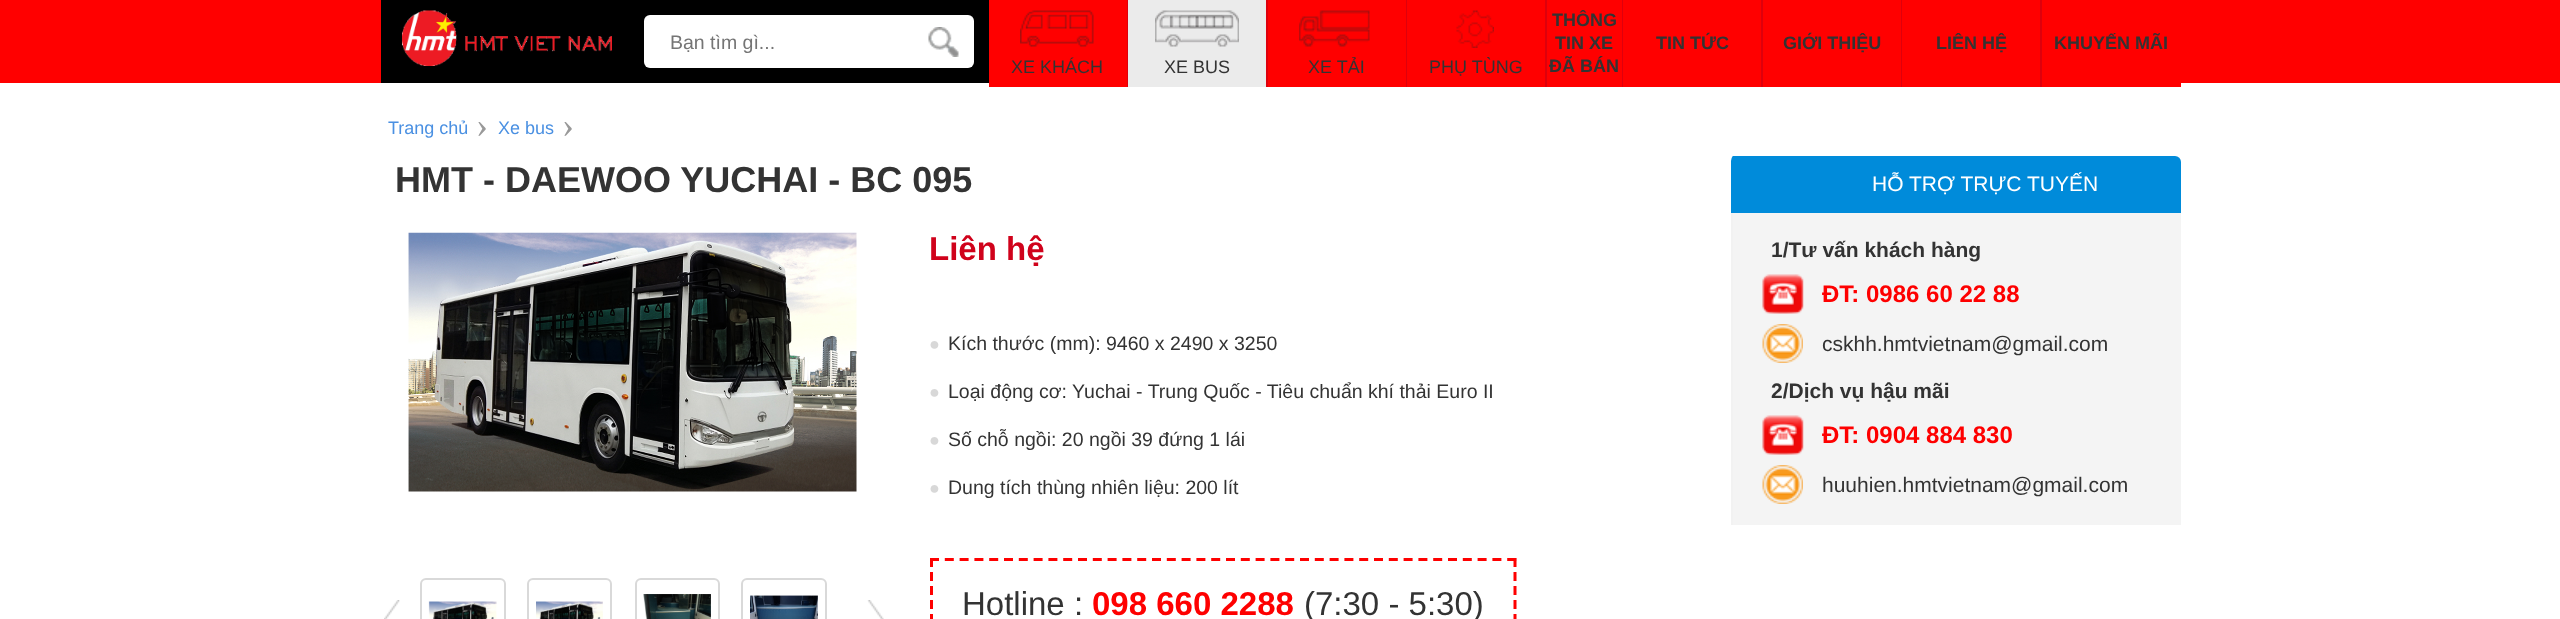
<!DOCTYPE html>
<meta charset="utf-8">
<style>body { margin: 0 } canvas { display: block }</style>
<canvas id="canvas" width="2560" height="619"></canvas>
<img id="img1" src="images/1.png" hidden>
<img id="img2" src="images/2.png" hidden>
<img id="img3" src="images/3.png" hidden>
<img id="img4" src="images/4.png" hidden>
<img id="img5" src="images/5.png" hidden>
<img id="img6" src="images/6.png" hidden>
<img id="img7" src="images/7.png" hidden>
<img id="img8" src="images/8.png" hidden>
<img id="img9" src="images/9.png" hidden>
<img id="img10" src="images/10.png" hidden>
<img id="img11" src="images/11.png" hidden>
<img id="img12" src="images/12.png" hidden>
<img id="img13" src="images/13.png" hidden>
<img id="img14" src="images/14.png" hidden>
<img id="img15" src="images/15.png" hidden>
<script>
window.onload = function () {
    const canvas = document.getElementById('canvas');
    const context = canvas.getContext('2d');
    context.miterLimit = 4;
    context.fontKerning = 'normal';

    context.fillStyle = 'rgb(255, 255, 255)';
    context.fillRect(0, 0, 2560, 619);
    context.fillStyle = 'rgb(255, 0, 0)';
    context.fillRect(0, 0, 2560, 83);
    context.fillStyle = 'rgb(0, 0, 0)';
    context.fillRect(381, 0, 608, 83);
    context.drawImage(document.getElementById('img1'), 402, 10, 210, 56);
    context.fillStyle = 'rgb(255, 255, 255)';
    context.beginPath();
    context.roundRect(644, 15, 330, 53, 6);
    context.fill();
    context.drawImage(document.getElementById('img2'), 928, 27, 31, 30);
    context.fillStyle = 'rgb(255, 0, 0)';
    context.fillRect(1547, 83, 75, 4);
    context.fillStyle = 'rgb(222, 0, 12)';
    context.fillRect(1622, 0, 1, 87);
    context.fillStyle = 'rgb(255, 0, 0)';
    context.fillRect(1623, 83, 138, 4);
    context.fillStyle = 'rgb(222, 0, 12)';
    context.fillRect(1761, 0, 2, 87);
    context.fillStyle = 'rgb(255, 0, 0)';
    context.fillRect(1763, 83, 138, 4);
    context.fillStyle = 'rgb(222, 0, 12)';
    context.fillRect(1901, 0, 1, 87);
    context.fillStyle = 'rgb(255, 0, 0)';
    context.fillRect(1902, 83, 138, 4);
    context.fillStyle = 'rgb(222, 0, 12)';
    context.fillRect(2040, 0, 2, 87);
    context.fillStyle = 'rgb(255, 0, 0)';
    context.fillRect(2042, 83, 139, 4);
    context.fillRect(989, 83, 138, 4);
    context.fillStyle = 'rgb(222, 0, 12)';
    context.fillRect(1127, 0, 1, 87);
    context.drawImage(document.getElementById('img3'), 1020, 10, 74, 37);
    context.fillStyle = 'rgb(235, 235, 235)';
    context.fillRect(1128, 0, 138, 87);
    context.fillStyle = 'rgb(222, 0, 12)';
    context.fillRect(1266, 0, 2, 87);
    context.drawImage(document.getElementById('img4'), 1155, 10, 84, 37);
    context.fillStyle = 'rgb(255, 0, 0)';
    context.fillRect(1268, 83, 138, 4);
    context.fillStyle = 'rgb(222, 0, 12)';
    context.fillRect(1406, 0, 1, 87);
    context.drawImage(document.getElementById('img5'), 1299, 10, 71, 37);
    context.fillStyle = 'rgb(255, 0, 0)';
    context.fillRect(1407, 83, 138, 4);
    context.fillStyle = 'rgb(222, 0, 12)';
    context.fillRect(1545, 0, 2, 87);
    context.drawImage(document.getElementById('img6'), 1456, 10, 38, 38);
    context.save();
    context.beginPath();
    context.roundRect(381, 156, 1800, 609, 6);
    context.clip();
    context.fillStyle = 'rgb(0, 139, 218)';
    context.beginPath();
    context.roundRect(1731, 153, 450, 60, [8, 0, 0, 0]);
    context.fill();
    context.restore();
    context.fillStyle = 'rgb(244, 244, 244)';
    context.fillRect(1733, 213, 448, 312);
    context.fillStyle = 'rgb(242, 242, 242)';
    context.fillRect(1731, 213, 2, 312);
    context.drawImage(document.getElementById('img7'), 1762, 274, 42, 40);
    context.drawImage(document.getElementById('img8'), 1762, 324, 41, 39);
    context.drawImage(document.getElementById('img7'), 1762, 415, 42, 40);
    context.drawImage(document.getElementById('img8'), 1762, 465, 41, 39);
    context.drawImage(document.getElementById('img9'), 408, 232, 449, 260);
    context.beginPath();
    context.roundRect(421, 579, 84, 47, 5);
    context.strokeStyle = 'rgb(217, 217, 217)';
    context.lineWidth = 2;
    context.stroke();
    context.drawImage(document.getElementById('img10'), 428, 601, 69, 18);
    context.beginPath();
    context.roundRect(528, 579, 83, 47, 5);
    context.stroke();
    context.drawImage(document.getElementById('img11'), 536, 601, 67, 18);
    context.beginPath();
    context.roundRect(636, 579, 83, 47, 5);
    context.stroke();
    context.drawImage(document.getElementById('img12'), 643, 594, 68, 25);
    context.beginPath();
    context.roundRect(742, 579, 84, 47, 5);
    context.stroke();
    context.drawImage(document.getElementById('img13'), 750, 595, 68, 24);
    context.drawImage(document.getElementById('img14'), 384, 600, 16, 19);
    context.drawImage(document.getElementById('img15'), 867, 600, 17, 19);
    context.beginPath();
    context.moveTo(930, 559.5);
    context.lineTo(1516.5, 559.5);
    context.strokeStyle = 'rgb(254, 0, 0)';
    context.lineWidth = 3;
    context.setLineDash([9, 5.8]);
    context.stroke();
    context.beginPath();
    context.moveTo(1515, 558);
    context.lineTo(1515, 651);
    context.setLineDash([9, 5]);
    context.stroke();
    context.beginPath();
    context.moveTo(931.5, 558);
    context.lineTo(931.5, 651);
    context.stroke();
    context.font = '19.5px Liberation Sans';
    context.fillStyle = 'rgb(117, 117, 117)';
    context.fillText('Bạn tìm gì...', 670, 49);
    context.font = 'bold 18px Liberation Sans';
    context.fillStyle = 'rgb(51, 51, 51)';
    context.fillText('THÔNG', 1552, 26);
    context.fillText('TIN XE', 1555, 49);
    context.fillText('ĐÃ BÁN', 1549, 72);
    context.fillText('TIN TỨC', 1656, 49);
    context.fillText('GIỚI THIỆU', 1783, 49);
    context.fillText('LIÊN HỆ', 1936, 49);
    context.fillText('KHUYẾN MÃI', 2054, 49);
    context.font = '18px Liberation Sans';
    context.fillText('XE KHÁCH', 1011, 73);
    context.fillText('XE BUS', 1164, 73);
    context.fillText('XE TẢI', 1308, 73);
    context.fillText('PHỤ TÙNG', 1429, 73);
    context.fillStyle = 'rgb(74, 144, 226)';
    context.fillText('Trang chủ', 388, 134);
    context.font = '36px Liberation Serif';
    context.fillStyle = 'rgb(153, 153, 153)';
    context.fillText('›', 476, 137);
    context.font = '18px Liberation Sans';
    context.fillStyle = 'rgb(74, 144, 226)';
    context.fillText('Xe bus', 498, 134);
    context.font = '36px Liberation Serif';
    context.fillStyle = 'rgb(153, 153, 153)';
    context.fillText('›', 562, 137);
    context.font = 'bold 36px Liberation Sans';
    context.fillStyle = 'rgb(51, 51, 51)';
    context.fillText('HMT - DAEWOO YUCHAI - BC 095', 395, 192);
    context.font = '21px Liberation Sans';
    context.fillStyle = 'rgb(255, 255, 255)';
    context.fillText('HỖ TRỢ TRỰC TUYẾN', 1872, 191);
    context.font = 'bold 21px Liberation Sans';
    context.fillStyle = 'rgb(51, 51, 51)';
    context.fillText('1/Tư vấn khách hàng', 1771, 257);
    context.font = 'bold 24px Liberation Sans';
    context.fillStyle = 'rgb(254, 0, 0)';
    context.fillText('ĐT: 0986 60 22 88', 1822, 302);
    context.font = '21px Liberation Sans';
    context.fillStyle = 'rgb(51, 51, 51)';
    context.fillText('cskhh.hmtvietnam@gmail.com', 1822, 351);
    context.font = 'bold 21px Liberation Sans';
    context.fillText('2/Dịch vụ hậu mãi', 1771, 398);
    context.font = 'bold 24px Liberation Sans';
    context.fillStyle = 'rgb(254, 0, 0)';
    context.fillText('ĐT: 0904 884 830', 1822, 443);
    context.font = '21px Liberation Sans';
    context.fillStyle = 'rgb(51, 51, 51)';
    context.fillText('huuhien.hmtvietnam@gmail.com', 1822, 492);
    context.font = 'bold 33px Liberation Sans';
    context.fillStyle = 'rgb(208, 2, 27)';
    context.fillText('Liên hệ', 929, 260);
    context.font = '18px Liberation Sans';
    context.fillStyle = 'rgb(216, 216, 216)';
    context.fillText('●', 929, 350);
    context.font = '19.5px Liberation Sans';
    context.fillStyle = 'rgb(51, 51, 51)';
    context.fillText('Kích thước (mm): 9460 x 2490 x 3250', 948, 350);
    context.font = '18px Liberation Sans';
    context.fillStyle = 'rgb(216, 216, 216)';
    context.fillText('●', 929, 398);
    context.font = '19.5px Liberation Sans';
    context.fillStyle = 'rgb(51, 51, 51)';
    context.fillText('Loại động cơ: Yuchai - Trung Quốc - Tiêu chuẩn khí thải Euro II', 948, 398);
    context.font = '18px Liberation Sans';
    context.fillStyle = 'rgb(216, 216, 216)';
    context.fillText('●', 929, 446);
    context.font = '19.5px Liberation Sans';
    context.fillStyle = 'rgb(51, 51, 51)';
    context.fillText('Số chỗ ngồi: 20 ngồi 39 đứng 1 lái', 948, 446);
    context.font = '18px Liberation Sans';
    context.fillStyle = 'rgb(216, 216, 216)';
    context.fillText('●', 929, 494);
    context.font = '19.5px Liberation Sans';
    context.fillStyle = 'rgb(51, 51, 51)';
    context.fillText('Dung tích thùng nhiên liệu: 200 lít', 948, 494);
    context.font = '33px Liberation Sans';
    context.fillText('Hotline :', 962, 615);
    context.font = 'bold 33px Liberation Sans';
    context.fillStyle = 'rgb(254, 0, 0)';
    context.fillText('098 660 2288', 1092, 615);
    context.font = '33px Liberation Sans';
    context.fillStyle = 'rgb(51, 51, 51)';
    context.fillText('(7:30 - 5:30)', 1304, 615);
};
</script>
